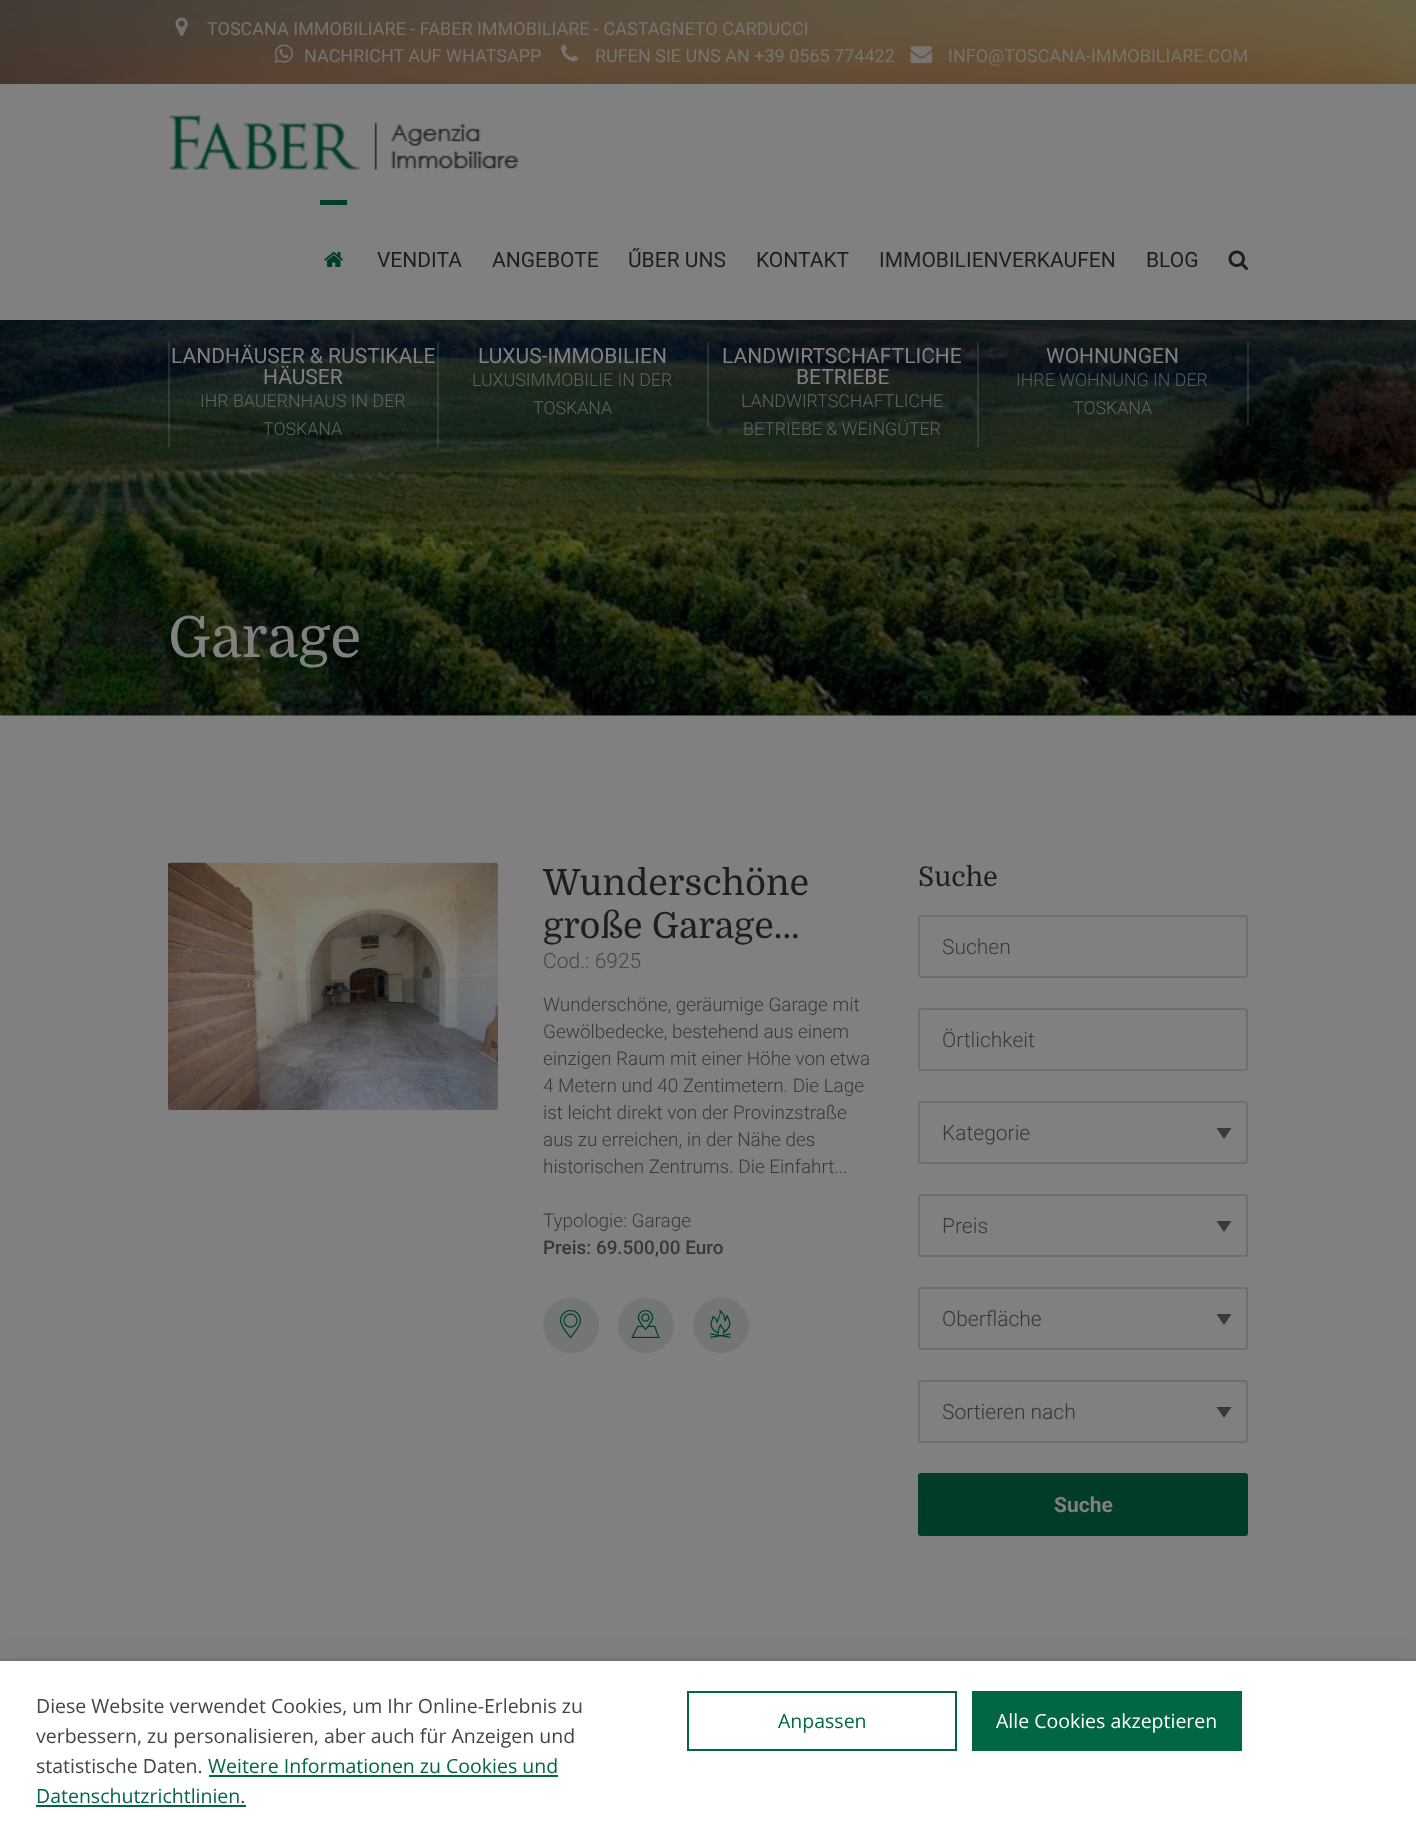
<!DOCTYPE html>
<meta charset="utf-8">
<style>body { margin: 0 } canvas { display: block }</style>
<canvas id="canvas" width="1416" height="1840"></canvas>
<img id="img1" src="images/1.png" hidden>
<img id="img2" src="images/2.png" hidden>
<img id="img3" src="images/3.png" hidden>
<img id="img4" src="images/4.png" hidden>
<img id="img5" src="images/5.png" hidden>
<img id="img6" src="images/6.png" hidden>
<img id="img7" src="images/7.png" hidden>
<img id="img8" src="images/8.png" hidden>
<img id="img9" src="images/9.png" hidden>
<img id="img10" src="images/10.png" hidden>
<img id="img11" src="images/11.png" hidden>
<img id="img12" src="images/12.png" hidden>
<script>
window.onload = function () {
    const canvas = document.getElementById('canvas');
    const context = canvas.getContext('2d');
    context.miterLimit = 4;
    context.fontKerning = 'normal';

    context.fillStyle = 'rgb(128, 128, 128)';
    context.fillRect(0, 0, 1416, 1840);
    context.drawImage(document.getElementById('img1'), 0, 0, 1416, 716);
    context.fillStyle = 'rgba(0, 0, 0, 0.15)';
    context.fillRect(0, 0, 1416, 470);
    context.drawImage(document.getElementById('img2'), 175, 17, 13, 19);
    context.drawImage(document.getElementById('img3'), 274, 44, 19, 19);
    context.drawImage(document.getElementById('img4'), 561, 44, 17, 18);
    context.drawImage(document.getElementById('img5'), 910, 46, 23, 18);
    context.fillStyle = 'rgb(128, 128, 128)';
    context.fillRect(0, 84, 1416, 236);
    context.drawImage(document.getElementById('img6'), 169, 115, 350, 55);
    context.fillStyle = 'rgb(0, 60, 40)';
    context.fillRect(320, 200, 27, 5);
    context.drawImage(document.getElementById('img7'), 324, 252, 20, 15);
    context.drawImage(document.getElementById('img8'), 1228, 250, 20, 20);
    context.fillStyle = 'rgba(128, 128, 128, 0.25)';
    context.fillRect(437, 342, 2, 105);
    context.fillRect(168, 342, 2, 105);
    context.fillRect(707, 342, 2, 84);
    context.fillRect(977, 342, 2, 105);
    context.fillRect(1247, 342, 2, 84);
    context.drawImage(document.getElementById('img9'), 168, 862, 330, 248);
    context.fillStyle = 'rgb(116, 117, 118)';
    context.beginPath();
    context.roundRect(543, 1298, 56, 55, 27.5);
    context.fill();
    context.drawImage(document.getElementById('img10'), 559, 1310, 23, 29);
    context.beginPath();
    context.roundRect(618, 1298, 56, 55, 27.5);
    context.fill();
    context.drawImage(document.getElementById('img11'), 631, 1310, 29, 28);
    context.beginPath();
    context.roundRect(693, 1298, 56, 55, 27.5);
    context.fill();
    context.drawImage(document.getElementById('img12'), 710, 1310, 21, 28);
    context.beginPath();
    context.roundRect(919, 916, 328, 61, 2);
    context.strokeStyle = 'rgb(109, 110, 111)';
    context.lineWidth = 2;
    context.stroke();
    context.beginPath();
    context.roundRect(919, 1009, 328, 61, 2);
    context.stroke();
    context.fillStyle = 'rgb(51, 57, 61)';
    context.beginPath();
    context.moveTo(1216.5, 1128);
    context.lineTo(1231.5, 1128);
    context.lineTo(1224, 1139);
    context.closePath();
    context.fill('evenodd');
    context.beginPath();
    context.roundRect(919, 1102, 328, 61, 2);
    context.stroke();
    context.beginPath();
    context.moveTo(1216.5, 1221);
    context.lineTo(1231.5, 1221);
    context.lineTo(1224, 1232);
    context.closePath();
    context.fill('evenodd');
    context.beginPath();
    context.roundRect(919, 1195, 328, 61, 2);
    context.stroke();
    context.beginPath();
    context.moveTo(1216.5, 1314);
    context.lineTo(1231.5, 1314);
    context.lineTo(1224, 1325);
    context.closePath();
    context.fill('evenodd');
    context.beginPath();
    context.roundRect(919, 1288, 328, 61, 2);
    context.stroke();
    context.beginPath();
    context.moveTo(1216.5, 1407);
    context.lineTo(1231.5, 1407);
    context.lineTo(1224, 1418);
    context.closePath();
    context.fill('evenodd');
    context.beginPath();
    context.roundRect(919, 1381, 328, 61, 2);
    context.stroke();
    context.fillStyle = 'rgb(0, 60, 40)';
    context.beginPath();
    context.roundRect(919, 1474, 328, 61, 2);
    context.fill();
    context.strokeStyle = 'rgb(0, 60, 40)';
    context.stroke();
    context.fillStyle = 'rgba(36, 47, 66, 0.31)';
    context.filter = 'blur(15px)';
    context.beginPath();
    context.rect(-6, 1670, 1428, 162);
    context.fill();
    context.filter = 'none';
    context.strokeStyle = 'rgba(36, 47, 66, 0.08)';
    context.strokeRect(-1, 1660, 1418, 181);
    context.fillStyle = 'rgb(255, 255, 255)';
    context.fillRect(0, 1661, 1416, 179);
    context.fillStyle = 'rgb(0, 102, 68)';
    context.fillRect(209, 1775, 349, 2);
    context.fillRect(36, 1805, 210, 2);
    context.strokeStyle = 'rgb(0, 102, 68)';
    context.strokeRect(688, 1692, 268, 58);
    context.fillRect(972, 1691, 270, 60);
    context.font = '18px Roboto';
    context.fillStyle = 'rgb(118, 115, 111)';
    context.fillText('TOSCANA IMMOBILIARE - FABER IMMOBILIARE - CASTAGNETO CARDUCCI', 207, 35);
    context.fillText('NACHRICHT AUF WHATSAPP', 304, 62);
    context.fillText('RUFEN SIE UNS AN +39 0565 774422', 595, 62);
    context.fillText('INFO@TOSCANA-IMMOBILIARE.COM', 948, 62);
    context.font = '21px Roboto';
    context.fillStyle = 'rgb(27, 31, 32)';
    context.fillText('VENDITA', 377, 267);
    context.fillText('ANGEBOTE', 492, 267);
    context.fillText('ŰBER UNS', 628, 267);
    context.fillText('KONTAKT', 756, 267);
    context.fillText('IMMOBILIENVERKAUFEN', 879, 267);
    context.fillText('BLOG', 1146, 267);
    context.fillStyle = 'rgb(128, 128, 128)';
    context.fillText('LANDHÄUSER & RUSTIKALE', 171, 363);
    context.fillText('HÄUSER', 263, 384);
    context.font = '300 17.8px Roboto';
    context.fillStyle = 'rgb(95, 99, 96)';
    context.fillText('IHR BAUERNHAUS IN DER', 200, 407);
    context.fillText('TOSKANA', 263, 435);
    context.font = '21px Roboto';
    context.fillStyle = 'rgb(128, 128, 128)';
    context.fillText('LUXUS-IMMOBILIEN', 478, 363);
    context.font = '300 17.8px Roboto';
    context.fillStyle = 'rgb(95, 99, 96)';
    context.fillText('LUXUSIMMOBILIE IN DER', 472, 386);
    context.fillText('TOSKANA', 533, 414);
    context.font = '21px Roboto';
    context.fillStyle = 'rgb(128, 128, 128)';
    context.fillText('LANDWIRTSCHAFTLICHE', 722, 363);
    context.fillText('BETRIEBE', 796, 384);
    context.font = '300 17.8px Roboto';
    context.fillStyle = 'rgb(95, 99, 96)';
    context.fillText('LANDWIRTSCHAFTLICHE', 741, 407);
    context.fillText('BETRIEBE & WEINGÜTER', 743, 435);
    context.font = '21px Roboto';
    context.fillStyle = 'rgb(128, 128, 128)';
    context.fillText('WOHNUNGEN', 1046, 363);
    context.font = '300 17.8px Roboto';
    context.fillStyle = 'rgb(89, 92, 94)';
    context.fillText('IHRE WOHNUNG IN DER', 1016, 386);
    context.fillStyle = 'rgb(95, 99, 96)';
    context.fillText('TOSKANA', 1073, 414);
    context.font = '57px Domine';
    context.fillStyle = 'rgb(128, 128, 128)';
    context.fillText('Garage', 168, 657);
    context.font = '36px Domine';
    context.fillStyle = 'rgb(27, 31, 32)';
    context.fillText('Wunderschöne', 543, 895);
    context.fillText('große Garage...', 543, 938);
    context.font = '300 21px Roboto';
    context.fillStyle = 'rgb(67, 71, 74)';
    context.fillText('Cod.: 6925', 543, 968);
    context.font = '300 18.9px Roboto';
    context.fillStyle = 'rgb(51, 57, 61)';
    context.fillText('Wunderschöne, geräumige Garage mit', 543, 1011);
    context.fillText('Gewölbedecke, bestehend aus einem', 543, 1038);
    context.fillText('einzigen Raum mit einer Höhe von etwa', 543, 1065);
    context.fillText('4 Metern und 40 Zentimetern. Die Lage', 543, 1092);
    context.fillText('ist leicht direkt von der Provinzstraße', 543, 1119);
    context.fillText('aus zu erreichen, in der Nähe des', 543, 1146);
    context.fillText('historischen Zentrums. Die Einfahrt...', 543, 1173);
    context.fillText('Typologie: Garage', 543, 1227);
    context.font = '500 18.9px Roboto';
    context.fillText('Preis: 69.500,00 Euro', 543, 1254);
    context.font = '27px Domine';
    context.fillStyle = 'rgb(27, 31, 32)';
    context.fillText('Suche', 918, 886);
    context.font = '300 21px Roboto';
    context.fillStyle = 'rgb(59, 59, 59)';
    context.fillText('Suchen', 942, 954);
    context.fillText('Örtlichkeit', 942, 1047);
    context.fillStyle = 'rgb(51, 57, 61)';
    context.fillText('Kategorie', 942, 1140);
    context.fillText('Preis', 942, 1233);
    context.fillText('Oberfläche', 942, 1326);
    context.fillText('Sortieren nach', 942, 1419);
    context.font = 'bold 21px Roboto';
    context.fillStyle = 'rgb(128, 128, 128)';
    context.fillText('Suche', 1054, 1512);
    context.font = '19.5px Open Sans';
    context.fillStyle = 'rgb(68, 68, 68)';
    context.fillText('Diese Website verwendet Cookies, um Ihr Online-Erlebnis zu', 36, 1713);
    context.fillText('verbessern, zu personalisieren, aber auch für Anzeigen und', 36, 1743);
    context.fillText('statistische Daten.', 36, 1773);
    context.fillStyle = 'rgb(0, 102, 68)';
    context.fillText('Weitere Informationen zu Cookies und', 208, 1773);
    context.fillText('Datenschutzrichtlinien.', 36, 1803);
    context.fillText('Anpassen', 778, 1728);
    context.fillStyle = 'rgb(255, 255, 255)';
    context.fillText('Alle Cookies akzeptieren', 996, 1728);
};
</script>
